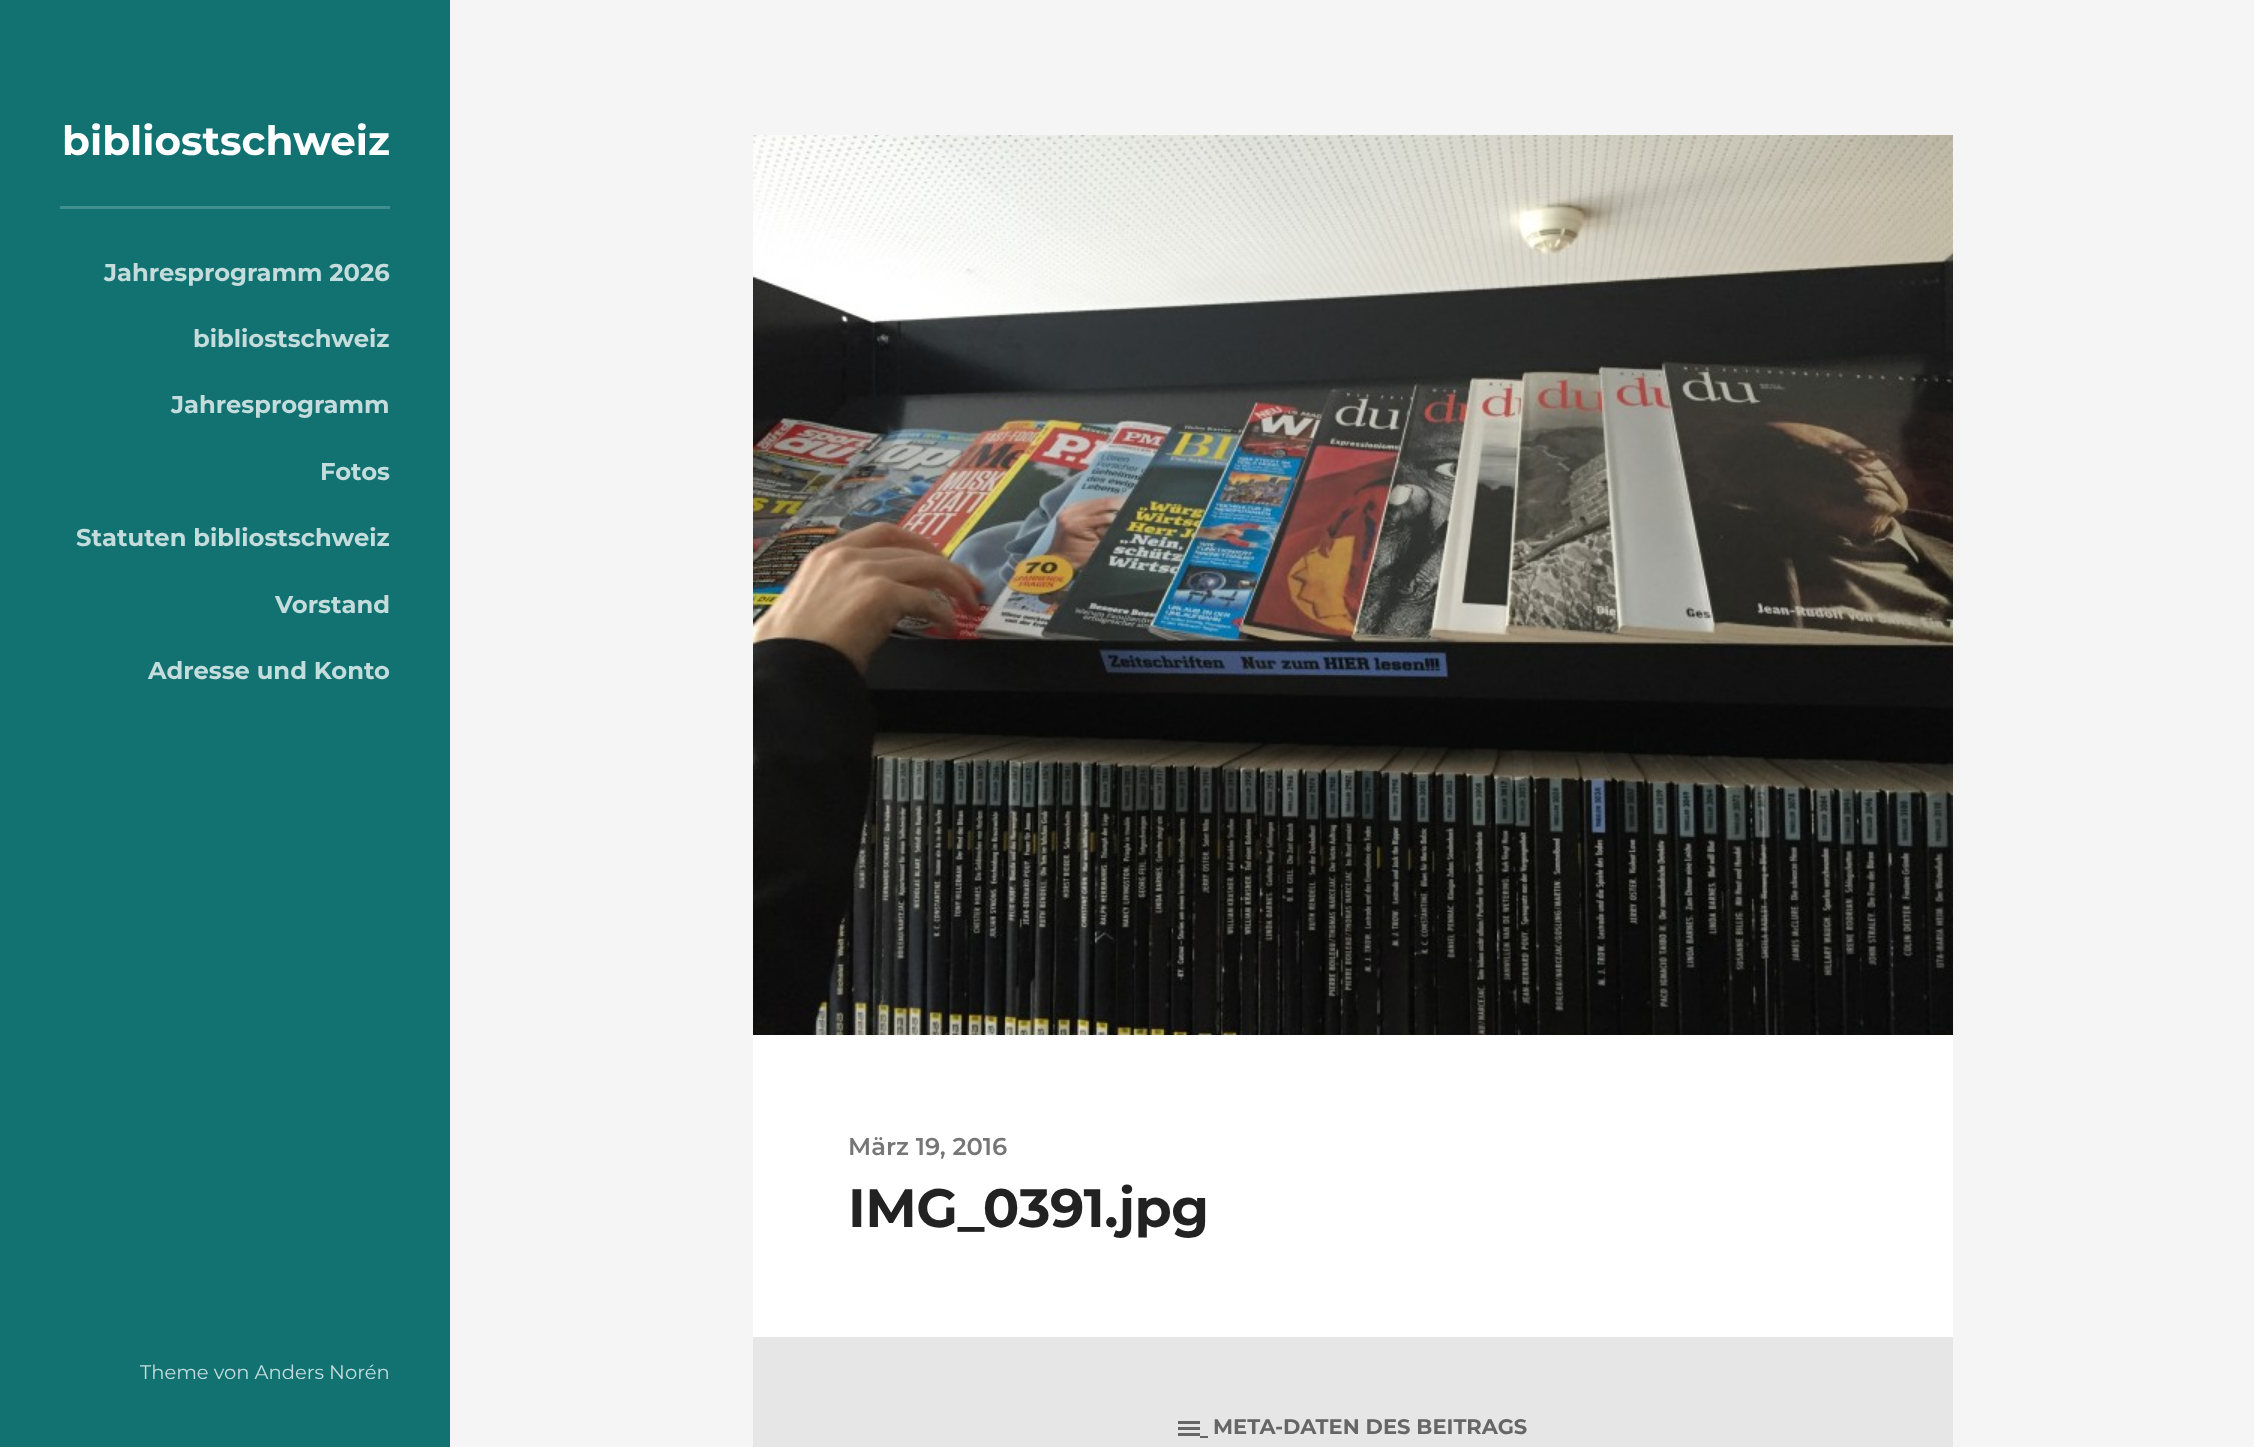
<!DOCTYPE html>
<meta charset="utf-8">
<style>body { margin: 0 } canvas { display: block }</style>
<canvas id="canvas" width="2254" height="1447"></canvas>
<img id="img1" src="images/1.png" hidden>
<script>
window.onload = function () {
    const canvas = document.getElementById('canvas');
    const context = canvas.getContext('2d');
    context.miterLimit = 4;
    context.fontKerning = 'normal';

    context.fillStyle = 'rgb(245, 245, 245)';
    context.fillRect(0, 0, 2254, 1447);
    context.fillStyle = 'rgb(18, 114, 114)';
    context.fillRect(0, 0, 450, 1447);
    context.fillStyle = 'rgb(65, 142, 142)';
    context.fillRect(60, 206, 330, 3);
    context.fillStyle = 'rgb(255, 255, 255)';
    context.fillRect(753, 1035, 1200, 302);
    context.drawImage(document.getElementById('img1'), 753, 135, 1200, 900);
    context.fillStyle = 'rgb(230, 230, 230)';
    context.fillRect(753, 1337, 1200, 110);
    context.fillStyle = 'rgb(102, 102, 102)';
    context.fillRect(1178, 1421, 22, 3);
    context.fillRect(1178, 1427, 22, 3);
    context.fillRect(1178, 1433, 22, 3);
    context.fillRect(1200, 1436, 8, 2);
    context.font = '100 40.5px "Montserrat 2"';
    context.fillStyle = 'rgb(255, 255, 255)';
    context.fillText('bibliostschweiz', 62, 155);
    context.font = '100 24.25px "Montserrat 2"';
    context.fillStyle = 'rgb(196, 220, 220)';
    context.fillText('Jahresprogramm 2026', 104, 281);
    context.fillText('bibliostschweiz', 193, 347);
    context.fillText('Jahresprogramm', 171, 413);
    context.fillText('Fotos', 320, 480);
    context.fillText('Statuten bibliostschweiz', 76, 546);
    context.fillText('Vorstand', 275, 613);
    context.fillText('Adresse und Konto', 148, 679);
    context.font = '100 19.5px "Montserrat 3"';
    context.fillText('Theme von Anders Norén', 140, 1379);
    context.font = '100 24.25px Montserrat';
    context.fillStyle = 'rgb(118, 118, 118)';
    context.fillText('März 19, 2016', 848, 1155);
    context.letterSpacing = '-0.5px';
    context.font = '100 54px "Montserrat 2"';
    context.fillStyle = 'rgb(34, 34, 34)';
    context.fillText('IMG_0391.jpg', 848, 1227);
    context.letterSpacing = '0px';
    context.font = '100 21px "Montserrat 2"';
    context.fillStyle = 'rgb(102, 102, 102)';
    context.fillText('META-DATEN DES BEITRAGS', 1213, 1434);
};
</script>
